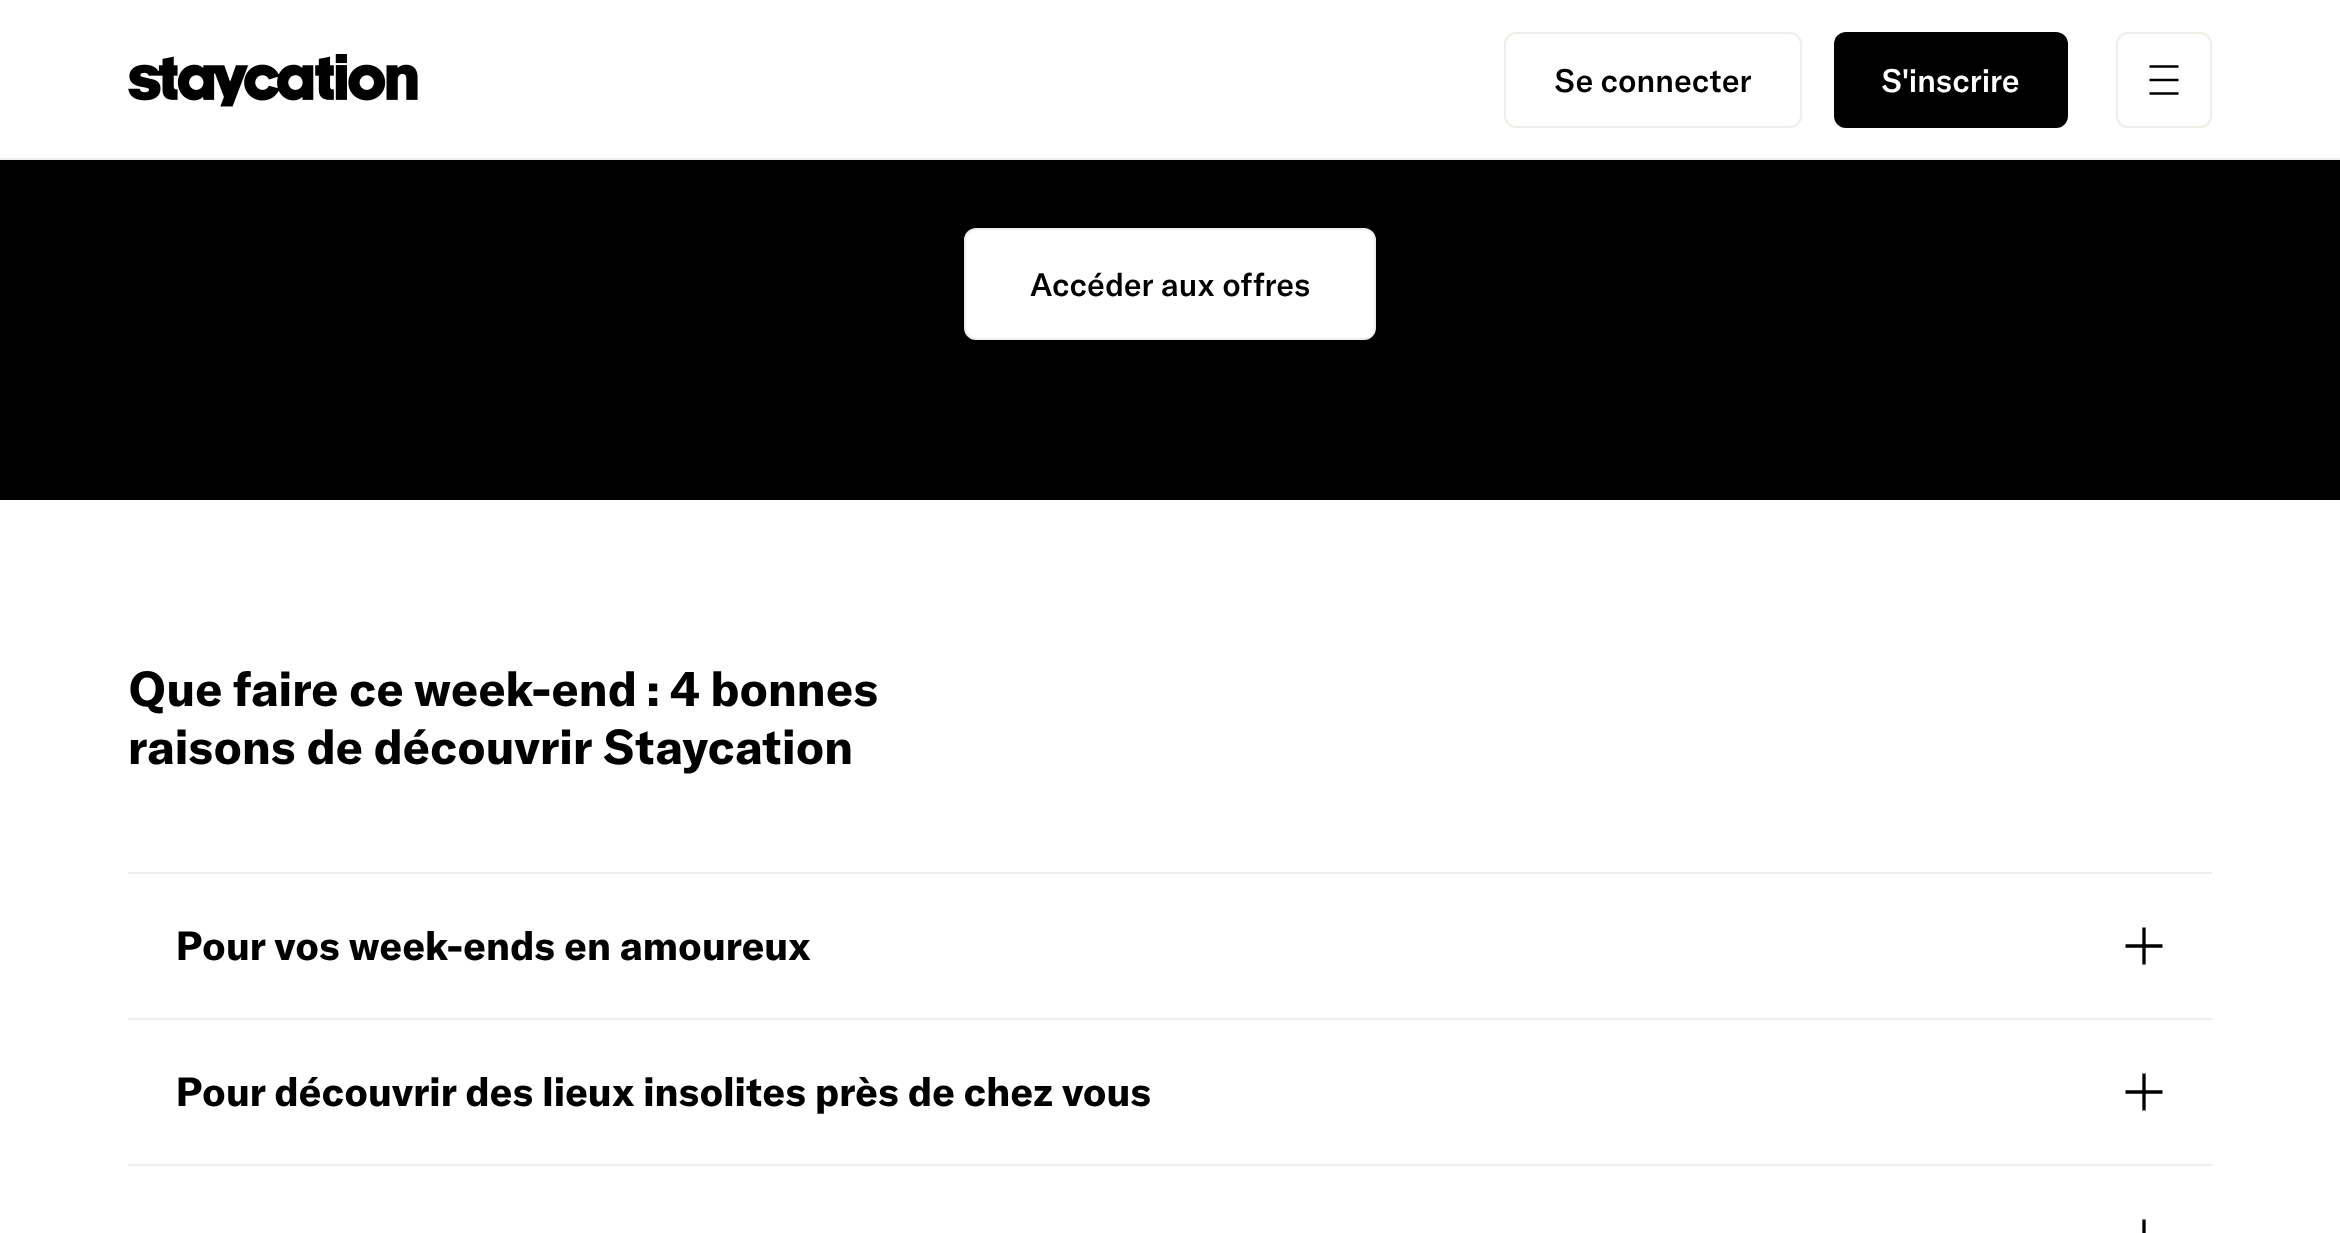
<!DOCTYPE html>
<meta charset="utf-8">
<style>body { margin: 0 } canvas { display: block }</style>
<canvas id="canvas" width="2340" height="1233"></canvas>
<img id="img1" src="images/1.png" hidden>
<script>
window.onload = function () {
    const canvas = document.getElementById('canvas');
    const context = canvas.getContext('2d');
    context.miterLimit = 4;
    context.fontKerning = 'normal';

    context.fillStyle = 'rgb(255, 255, 255)';
    context.fillRect(0, 0, 2340, 1233);
    context.fillStyle = 'rgb(239, 239, 233)';
    context.fillRect(0, 158, 2340, 2);
    context.drawImage(document.getElementById('img1'), 128, 54, 290, 53);
    context.beginPath();
    context.roundRect(1505, 33, 296, 94, 11);
    context.strokeStyle = 'rgb(239, 239, 233)';
    context.lineWidth = 2;
    context.stroke();
    context.fillStyle = 'rgb(0, 0, 0)';
    context.beginPath();
    context.roundRect(1834, 32, 234, 96, 12);
    context.fill();
    context.beginPath();
    context.roundRect(2117, 33, 94, 94, 11);
    context.stroke();
    context.beginPath();
    context.moveTo(2178.5, 93.5);
    context.lineTo(2149.5, 93.5);
    context.moveTo(2149.5, 66.5);
    context.lineTo(2178.5, 66.5);
    context.moveTo(2149.5, 80);
    context.lineTo(2178.5, 80);
    context.strokeStyle = 'rgb(0, 0, 0)';
    context.lineWidth = 2.7;
    context.stroke();
    context.fillRect(0, 160, 2340, 340);
    context.fillStyle = 'rgb(255, 255, 255)';
    context.beginPath();
    context.roundRect(965, 229, 410, 110, 11);
    context.fill();
    context.strokeStyle = 'rgb(239, 239, 233)';
    context.lineWidth = 2;
    context.stroke();
    context.fillStyle = 'rgb(239, 239, 233)';
    context.fillRect(128, 872, 2084, 2);
    context.fillRect(128, 1018, 2084, 2);
    context.beginPath();
    context.moveTo(2144, 927.5);
    context.lineTo(2144, 964.5);
    context.moveTo(2125.5, 946);
    context.lineTo(2162.5, 946);
    context.strokeStyle = 'rgb(0, 0, 0)';
    context.lineWidth = 3.3;
    context.stroke();
    context.fillRect(128, 1164, 2084, 2);
    context.beginPath();
    context.moveTo(2144, 1073.5);
    context.lineTo(2144, 1110.5);
    context.moveTo(2125.5, 1092);
    context.lineTo(2162.5, 1092);
    context.stroke();
    context.beginPath();
    context.moveTo(2144, 1219.5);
    context.lineTo(2144, 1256.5);
    context.moveTo(2125.5, 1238);
    context.lineTo(2162.5, 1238);
    context.stroke();
    context.font = '500 32px GT America';
    context.fillStyle = 'rgb(0, 0, 0)';
    context.fillText('Se connecter', 1554, 92);
    context.fillStyle = 'rgb(255, 255, 255)';
    context.fillText('S\'inscrire', 1881, 92);
    context.fillStyle = 'rgb(0, 0, 0)';
    context.fillText('Accéder aux offres', 1030, 296);
    context.font = 'bold 48px GT America';
    context.fillText('Que faire ce week-end : 4 bonnes', 128, 706);
    context.fillText('raisons de découvrir Staycation', 128, 764);
    context.font = 'bold 40px GT America';
    context.fillText('Pour vos week-ends en amoureux', 176, 960);
    context.fillText('Pour découvrir des lieux insolites près de chez vous', 176, 1106);
};
</script>
